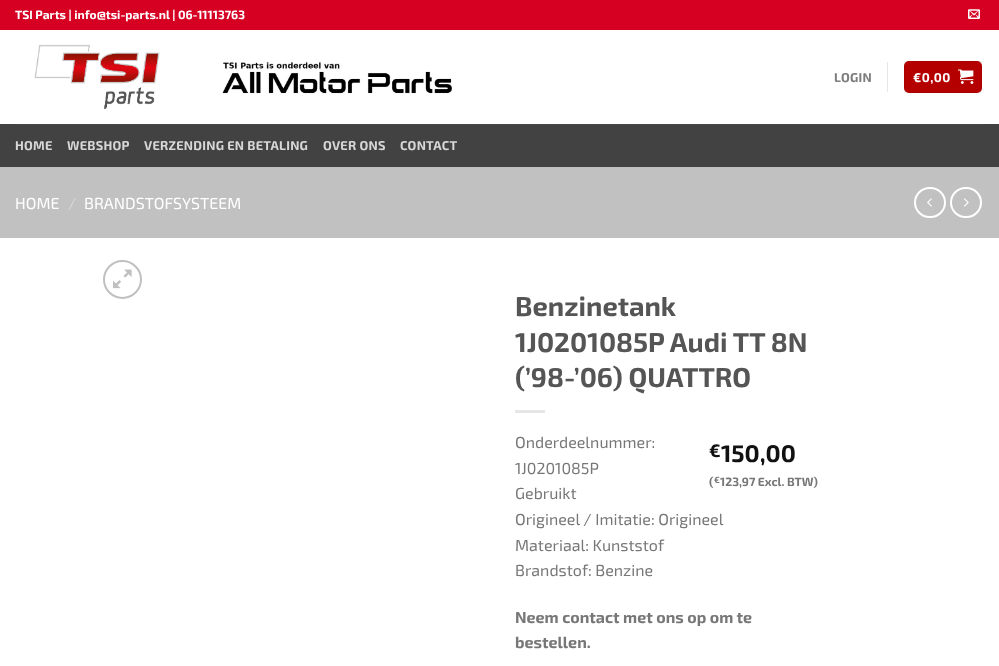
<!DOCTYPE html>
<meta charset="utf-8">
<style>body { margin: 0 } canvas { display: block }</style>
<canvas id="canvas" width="999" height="666"></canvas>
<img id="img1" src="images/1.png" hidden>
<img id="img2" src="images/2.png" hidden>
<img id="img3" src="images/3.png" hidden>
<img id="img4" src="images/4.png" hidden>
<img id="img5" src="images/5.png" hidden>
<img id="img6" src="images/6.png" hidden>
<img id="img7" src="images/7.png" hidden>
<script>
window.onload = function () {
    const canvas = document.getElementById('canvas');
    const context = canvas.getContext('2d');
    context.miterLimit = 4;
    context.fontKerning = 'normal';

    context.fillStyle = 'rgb(255, 255, 255)';
    context.fillRect(0, 0, 999, 666);
    context.fillStyle = 'rgb(214, 0, 35)';
    context.fillRect(0, 0, 999, 30);
    context.drawImage(document.getElementById('img1'), 968, 9, 12, 10);
    context.drawImage(document.getElementById('img2'), 34, 44, 126, 66);
    context.drawImage(document.getElementById('img3'), 222, 62, 230, 32);
    context.fillStyle = 'rgb(230, 230, 230)';
    context.fillRect(887, 62, 1, 30);
    context.fillStyle = 'rgb(181, 0, 0)';
    context.beginPath();
    context.roundRect(904, 61, 78, 32, 5);
    context.fill();
    context.strokeStyle = 'rgba(0, 0, 0, 0.05)';
    context.strokeRect(904.5, 61.5, 77, 31);
    context.drawImage(document.getElementById('img4'), 958, 69, 16, 15);
    context.fillStyle = 'rgb(66, 66, 66)';
    context.fillRect(0, 124, 999, 43);
    context.fillStyle = 'rgb(71, 71, 71)';
    context.fillRect(15, 124, 969, 1);
    context.fillStyle = 'rgb(193, 193, 193)';
    context.fillRect(0, 167, 999, 71);
    context.beginPath();
    context.roundRect(915, 188, 30, 29, 14.5);
    context.strokeStyle = 'rgb(255, 255, 255)';
    context.lineWidth = 2;
    context.stroke();
    context.drawImage(document.getElementById('img5'), 927, 198, 5, 9);
    context.beginPath();
    context.roundRect(951, 188, 30, 29, 14.5);
    context.stroke();
    context.drawImage(document.getElementById('img6'), 964, 198, 5, 9);
    context.beginPath();
    context.arc(122.5, 279.5, 18.5, 0, 2 * Math.PI);
    context.strokeStyle = 'rgb(192, 192, 192)';
    context.stroke();
    context.drawImage(document.getElementById('img7'), 113, 269, 19, 20);
    context.fillStyle = 'rgb(230, 230, 230)';
    context.fillRect(515, 410, 30, 3);
    context.font = 'bold 12px "Exo 2"';
    context.fillStyle = 'rgb(255, 255, 255)';
    context.fillText('TSI Parts | info@tsi-parts.nl | 06-11113763', 15, 19);
    context.letterSpacing = '0.25px';
    context.font = 'bold 12.75px "Exo 2"';
    context.fillStyle = 'rgb(125, 125, 125)';
    context.fillText('LOGIN', 834, 82);
    context.letterSpacing = '0.5px';
    context.fillStyle = 'rgb(255, 255, 255)';
    context.fillText('€0,00', 913, 82);
    context.letterSpacing = '0.25px';
    context.fillStyle = 'rgb(215, 215, 215)';
    context.fillText('HOME', 15, 150);
    context.fillText('WEBSHOP', 67, 150);
    context.fillText('VERZENDING EN BETALING', 144, 150);
    context.fillText('OVER ONS', 323, 150);
    context.fillText('CONTACT', 400, 150);
    context.letterSpacing = '0px';
    context.font = '16px "Exo 2"';
    context.fillStyle = 'rgb(255, 255, 255)';
    context.fillText('HOME', 15, 209);
    context.fillStyle = 'rgb(215, 215, 215)';
    context.fillText('/', 68, 209);
    context.fillStyle = 'rgb(255, 255, 255)';
    context.fillText('BRANDSTOFSYSTEEM', 84, 209);
    context.font = 'bold 27.25px "Exo 2"';
    context.fillStyle = 'rgb(85, 85, 85)';
    context.fillText('Benzinetank', 515, 316);
    context.fillText('1J0201085P Audi TT 8N', 515, 352);
    context.fillText('(’98-’06) QUATTRO', 515, 387);
    context.font = '16px "Exo 2"';
    context.fillStyle = 'rgb(119, 119, 119)';
    context.fillText('Onderdeelnummer:', 515, 448);
    context.fillText('1J0201085P', 515, 474);
    context.fillText('Gebruikt', 515, 499);
    context.fillText('Origineel / Imitatie: Origineel', 515, 525);
    context.fillText('Materiaal: Kunststof', 515, 551);
    context.fillText('Brandstof: Benzine', 515, 576);
    context.font = 'bold 16px "Exo 2"';
    context.fillText('Neem contact met ons op om te', 515, 623);
    context.fillText('bestellen.', 515, 648);
    context.font = 'bold 18px "Exo 2"';
    context.fillStyle = 'rgb(17, 17, 17)';
    context.fillText('€', 709, 457);
    context.font = 'bold 24px "Exo 2"';
    context.fillText('150,00', 721, 462);
    context.font = 'bold 12px "Exo 2"';
    context.fillStyle = 'rgb(119, 119, 119)';
    context.fillText('(', 709, 486);
    context.font = 'bold 9px "Exo 2"';
    context.fillText('€', 714, 483);
    context.font = 'bold 12px "Exo 2"';
    context.fillText('123,97 Excl. BTW)', 720, 486);
};
</script>
